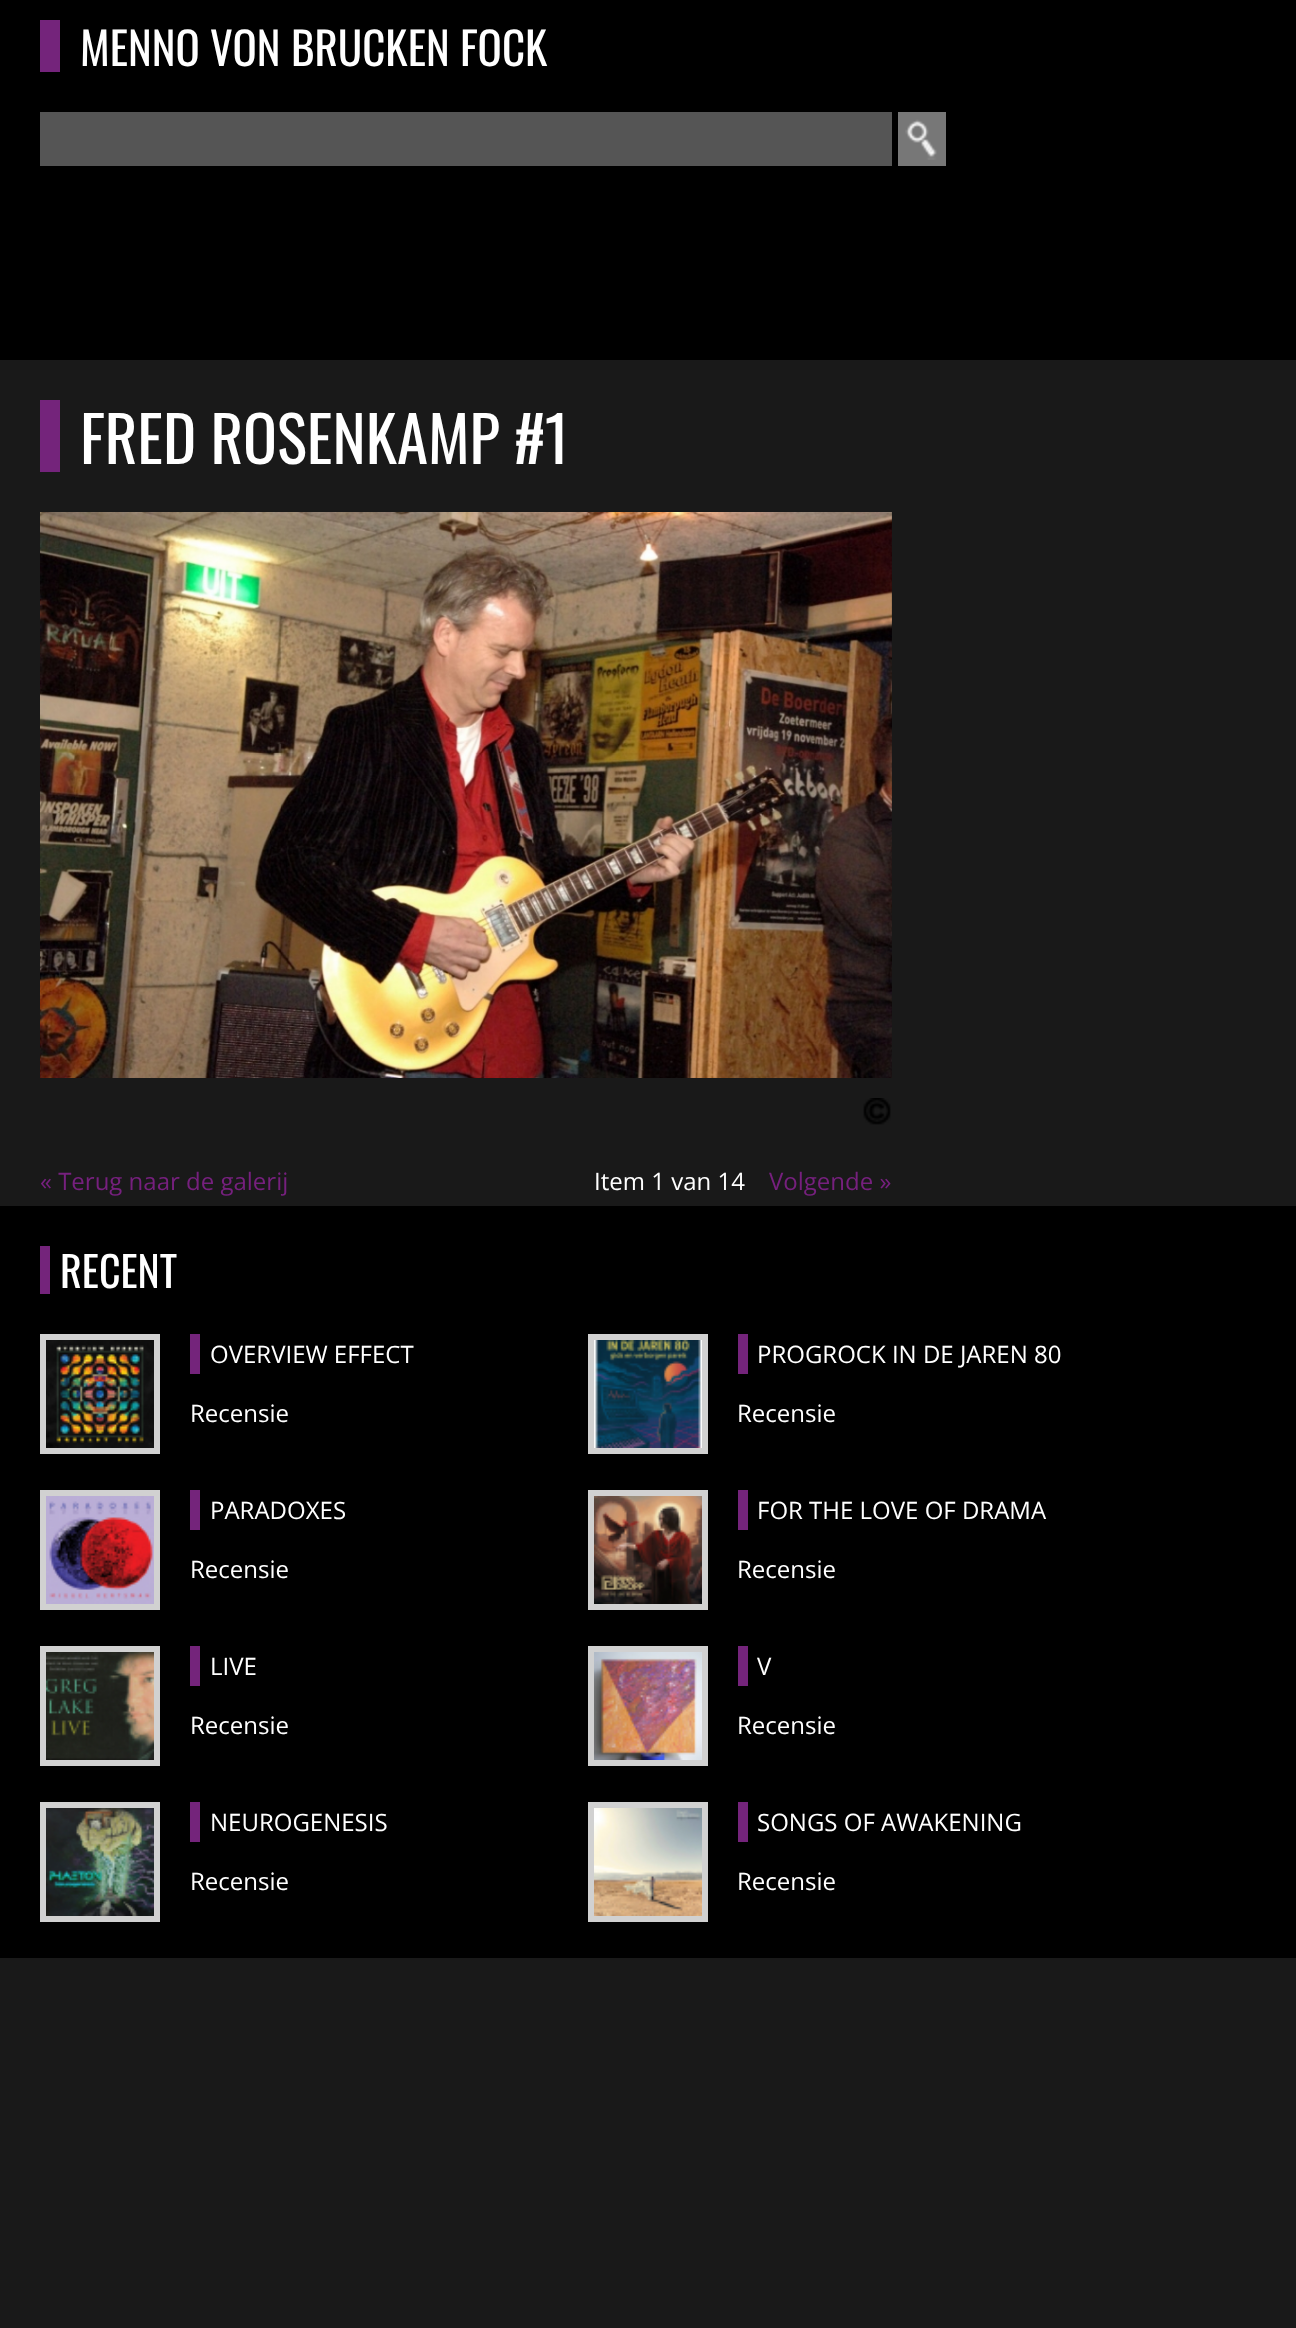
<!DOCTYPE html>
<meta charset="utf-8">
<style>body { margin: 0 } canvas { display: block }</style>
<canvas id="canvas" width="1296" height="2328"></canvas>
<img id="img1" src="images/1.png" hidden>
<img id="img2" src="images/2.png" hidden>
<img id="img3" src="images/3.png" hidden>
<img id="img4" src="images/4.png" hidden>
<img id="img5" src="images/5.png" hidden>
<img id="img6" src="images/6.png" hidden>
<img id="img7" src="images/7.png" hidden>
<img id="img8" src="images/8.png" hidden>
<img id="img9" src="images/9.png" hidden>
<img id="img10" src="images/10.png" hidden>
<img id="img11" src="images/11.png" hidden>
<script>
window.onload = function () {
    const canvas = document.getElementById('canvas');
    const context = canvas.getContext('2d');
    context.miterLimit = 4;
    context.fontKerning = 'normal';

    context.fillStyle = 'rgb(25, 25, 25)';
    context.fillRect(0, 0, 1296, 2328);
    context.fillStyle = 'rgb(0, 0, 0)';
    context.fillRect(0, 0, 1296, 360);
    context.fillStyle = 'rgb(116, 36, 123)';
    context.fillRect(40, 20, 20, 52);
    context.fillStyle = 'rgb(85, 85, 85)';
    context.fillRect(40, 112, 852, 54);
    context.fillStyle = 'rgb(119, 119, 119)';
    context.fillRect(898, 112, 48, 54);
    context.drawImage(document.getElementById('img1'), 905, 119, 32, 41);
    context.fillStyle = 'rgb(116, 36, 123)';
    context.fillRect(40, 400, 20, 72);
    context.drawImage(document.getElementById('img2'), 40, 512, 852, 566);
    context.drawImage(document.getElementById('img3'), 863, 1098, 28, 27);
    context.fillStyle = 'rgb(0, 0, 0)';
    context.fillRect(0, 1206, 1296, 752);
    context.fillStyle = 'rgb(116, 36, 123)';
    context.fillRect(40, 1246, 10, 48);
    context.strokeStyle = 'rgb(209, 209, 209)';
    context.lineWidth = 6;
    context.strokeRect(43, 1337, 114, 114);
    context.drawImage(document.getElementById('img4'), 46, 1340, 108, 108);
    context.fillRect(190, 1334, 10, 40);
    context.strokeRect(591, 1337, 114, 114);
    context.drawImage(document.getElementById('img5'), 594, 1340, 108, 108);
    context.fillRect(738, 1334, 10, 40);
    context.strokeRect(43, 1493, 114, 114);
    context.drawImage(document.getElementById('img6'), 46, 1496, 108, 108);
    context.fillRect(190, 1490, 10, 40);
    context.strokeRect(591, 1493, 114, 114);
    context.drawImage(document.getElementById('img7'), 594, 1496, 108, 108);
    context.fillRect(738, 1490, 10, 40);
    context.strokeRect(43, 1649, 114, 114);
    context.drawImage(document.getElementById('img8'), 46, 1652, 108, 108);
    context.fillRect(190, 1646, 10, 40);
    context.strokeRect(591, 1649, 114, 114);
    context.drawImage(document.getElementById('img9'), 594, 1652, 108, 108);
    context.fillRect(738, 1646, 10, 40);
    context.strokeRect(43, 1805, 114, 114);
    context.drawImage(document.getElementById('img10'), 46, 1808, 108, 108);
    context.fillRect(190, 1802, 10, 40);
    context.strokeRect(591, 1805, 114, 114);
    context.drawImage(document.getElementById('img11'), 594, 1808, 108, 108);
    context.fillRect(738, 1802, 10, 40);
    context.font = '45px Oswald';
    context.fillStyle = 'rgb(255, 255, 255)';
    context.fillText('MENNO VON BRUCKEN FOCK', 80, 66);
    context.font = '63px Oswald';
    context.fillText('FRED ROSENKAMP #1', 80, 464);
    context.font = '24px Open Sans';
    context.fillStyle = 'rgb(118, 32, 126)';
    context.fillText('« Terug naar de galerij', 40, 1190);
    context.fillStyle = 'rgb(255, 255, 255)';
    context.fillText('Item 1 van 14', 594, 1190);
    context.fillStyle = 'rgb(118, 32, 126)';
    context.fillText('Volgende »', 769, 1190);
    context.font = '42px Oswald';
    context.fillStyle = 'rgb(255, 255, 255)';
    context.fillText('RECENT', 60, 1288);
    context.font = '24px Open Sans';
    context.fillText('OVERVIEW EFFECT', 210, 1363);
    context.fillText('Recensie', 190, 1422);
    context.fillText('PROGROCK IN DE JAREN 80', 757, 1363);
    context.fillText('Recensie', 737, 1422);
    context.fillText('PARADOXES', 210, 1519);
    context.fillText('Recensie', 190, 1578);
    context.fillText('FOR THE LOVE OF DRAMA', 757, 1519);
    context.fillText('Recensie', 737, 1578);
    context.fillText('LIVE', 210, 1675);
    context.fillText('Recensie', 190, 1734);
    context.fillText('V', 757, 1675);
    context.fillText('Recensie', 737, 1734);
    context.fillText('NEUROGENESIS', 210, 1831);
    context.fillText('Recensie', 190, 1890);
    context.fillText('SONGS OF AWAKENING', 757, 1831);
    context.fillText('Recensie', 737, 1890);
};
</script>
